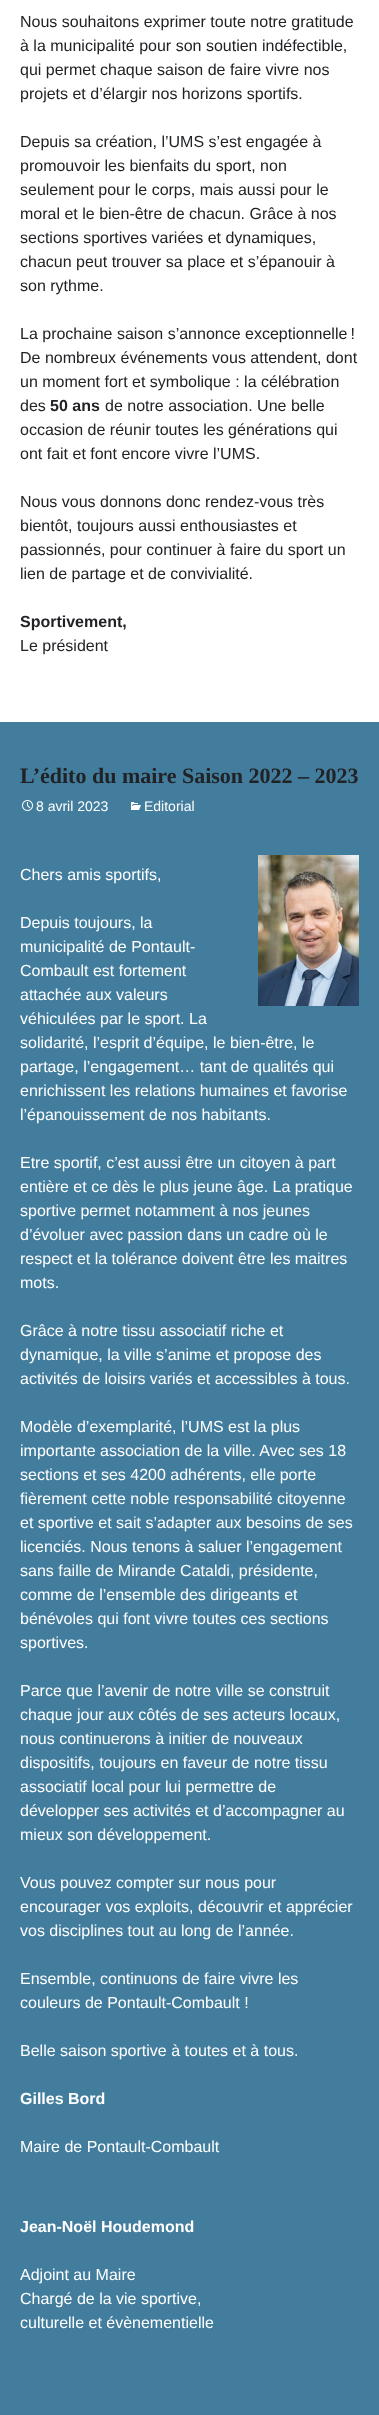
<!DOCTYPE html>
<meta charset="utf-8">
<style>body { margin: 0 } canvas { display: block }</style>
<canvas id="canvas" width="379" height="2415"></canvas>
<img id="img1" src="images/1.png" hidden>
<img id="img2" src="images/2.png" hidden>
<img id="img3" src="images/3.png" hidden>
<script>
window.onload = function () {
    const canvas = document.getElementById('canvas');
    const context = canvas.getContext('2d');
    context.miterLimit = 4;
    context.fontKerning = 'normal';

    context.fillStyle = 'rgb(255, 255, 255)';
    context.fillRect(0, 0, 379, 2415);
    context.fillStyle = 'rgb(67, 125, 158)';
    context.fillRect(0, 722, 379, 1693);
    context.drawImage(document.getElementById('img1'), 22, 800, 11, 11);
    context.drawImage(document.getElementById('img2'), 131, 802, 10, 8);
    context.drawImage(document.getElementById('img3'), 258, 855, 101, 151);
    context.font = '16px Liberation Sans';
    context.fillStyle = 'rgb(32, 34, 37)';
    context.fillText('Nous souhaitons exprimer toute notre gratitude', 20, 27);
    context.fillText('à la municipalité pour son soutien indéfectible,', 20, 51);
    context.fillText('qui permet chaque saison de faire vivre nos', 20, 75);
    context.fillText('projets et d’élargir nos horizons sportifs.', 20, 99);
    context.fillText('Depuis sa création, l’UMS s’est engagée à', 20, 147);
    context.fillText('promouvoir les bienfaits du sport, non', 20, 171);
    context.fillText('seulement pour le corps, mais aussi pour le', 20, 195);
    context.fillText('moral et le bien-être de chacun. Grâce à nos', 20, 219);
    context.fillText('sections sportives variées et dynamiques,', 20, 243);
    context.fillText('chacun peut trouver sa place et s’épanouir à', 20, 267);
    context.fillText('son rythme.', 20, 291);
    context.fillText('La prochaine saison s’annonce exceptionnelle !', 20, 339);
    context.fillText('De nombreux événements vous attendent, dont', 20, 363);
    context.fillText('un moment fort et symbolique : la célébration', 20, 387);
    context.fillText('des', 20, 411);
    context.font = 'bold 16px Liberation Sans';
    context.fillText('50 ans', 50, 411);
    context.font = '16px Liberation Sans';
    context.fillText('de notre association. Une belle', 105, 411);
    context.fillText('occasion de réunir toutes les générations qui', 20, 435);
    context.fillText('ont fait et font encore vivre l’UMS.', 20, 459);
    context.fillText('Nous vous donnons donc rendez-vous très', 20, 507);
    context.fillText('bientôt, toujours aussi enthousiastes et', 20, 531);
    context.fillText('passionnés, pour continuer à faire du sport un', 20, 555);
    context.fillText('lien de partage et de convivialité.', 20, 579);
    context.font = 'bold 16px Liberation Sans';
    context.fillText('Sportivement,', 20, 627);
    context.font = '16px Liberation Sans';
    context.fillText('Le président', 20, 651);
    context.font = 'bold 22px Liberation Serif';
    context.fillText('L’édito du maire Saison 2022 – 2023', 20, 783);
    context.font = '14px Liberation Sans';
    context.fillStyle = 'rgb(255, 255, 255)';
    context.fillText('8 avril 2023', 36, 811);
    context.fillText('Editorial', 144, 811);
    context.font = '16px Liberation Sans';
    context.fillText('Chers amis sportifs,', 20, 880);
    context.fillText('Depuis toujours, la', 20, 928);
    context.fillText('municipalité de Pontault-', 20, 952);
    context.fillText('Combault est fortement', 20, 976);
    context.fillText('attachée aux valeurs', 20, 1000);
    context.fillText('véhiculées par le sport. La', 20, 1024);
    context.fillText('solidarité, l’esprit d’équipe, le bien-être, le', 20, 1048);
    context.fillText('partage, l’engagement… tant de qualités qui', 20, 1072);
    context.fillText('enrichissent les relations humaines et favorise', 20, 1096);
    context.fillText('l’épanouissement de nos habitants.', 20, 1120);
    context.fillText('Etre sportif, c’est aussi être un citoyen à part', 20, 1168);
    context.fillText('entière et ce dès le plus jeune âge. La pratique', 20, 1192);
    context.fillText('sportive permet notamment à nos jeunes', 20, 1216);
    context.fillText('d’évoluer avec passion dans un cadre où le', 20, 1240);
    context.fillText('respect et la tolérance doivent être les maitres', 20, 1264);
    context.fillText('mots.', 20, 1288);
    context.fillText('Grâce à notre tissu associatif riche et', 20, 1336);
    context.fillText('dynamique, la ville s’anime et propose des', 20, 1360);
    context.fillText('activités de loisirs variés et accessibles à tous.', 20, 1384);
    context.fillText('Modèle d’exemplarité, l’UMS est la plus', 20, 1432);
    context.fillText('importante association de la ville. Avec ses 18', 20, 1456);
    context.fillText('sections et ses 4200 adhérents, elle porte', 20, 1480);
    context.fillText('fièrement cette noble responsabilité citoyenne', 20, 1504);
    context.fillText('et sportive et sait s’adapter aux besoins de ses', 20, 1528);
    context.fillText('licenciés. Nous tenons à saluer l’engagement', 20, 1552);
    context.fillText('sans faille de Mirande Cataldi, présidente,', 20, 1576);
    context.fillText('comme de l’ensemble des dirigeants et', 20, 1600);
    context.fillText('bénévoles qui font vivre toutes ces sections', 20, 1624);
    context.fillText('sportives.', 20, 1648);
    context.fillText('Parce que l’avenir de notre ville se construit', 20, 1696);
    context.fillText('chaque jour aux côtés de ses acteurs locaux,', 20, 1720);
    context.fillText('nous continuerons à initier de nouveaux', 20, 1744);
    context.fillText('dispositifs, toujours en faveur de notre tissu', 20, 1768);
    context.fillText('associatif local pour lui permettre de', 20, 1792);
    context.fillText('développer ses activités et d’accompagner au', 20, 1816);
    context.fillText('mieux son développement.', 20, 1840);
    context.fillText('Vous pouvez compter sur nous pour', 20, 1888);
    context.fillText('encourager vos exploits, découvrir et apprécier', 20, 1912);
    context.fillText('vos disciplines tout au long de l’année.', 20, 1936);
    context.fillText('Ensemble, continuons de faire vivre les', 20, 1984);
    context.fillText('couleurs de Pontault-Combault !', 20, 2008);
    context.fillText('Belle saison sportive à toutes et à tous.', 20, 2056);
    context.font = 'bold 16px Liberation Sans';
    context.fillText('Gilles Bord', 20, 2104);
    context.font = '16px Liberation Sans';
    context.fillText('Maire de Pontault-Combault', 20, 2152);
    context.font = 'bold 16px Liberation Sans';
    context.fillText('Jean-Noël Houdemond', 20, 2232);
    context.font = '16px Liberation Sans';
    context.fillText('Adjoint au Maire', 20, 2280);
    context.fillText('Chargé de la vie sportive,', 20, 2304);
    context.fillText('culturelle et évènementielle', 20, 2328);
};
</script>
